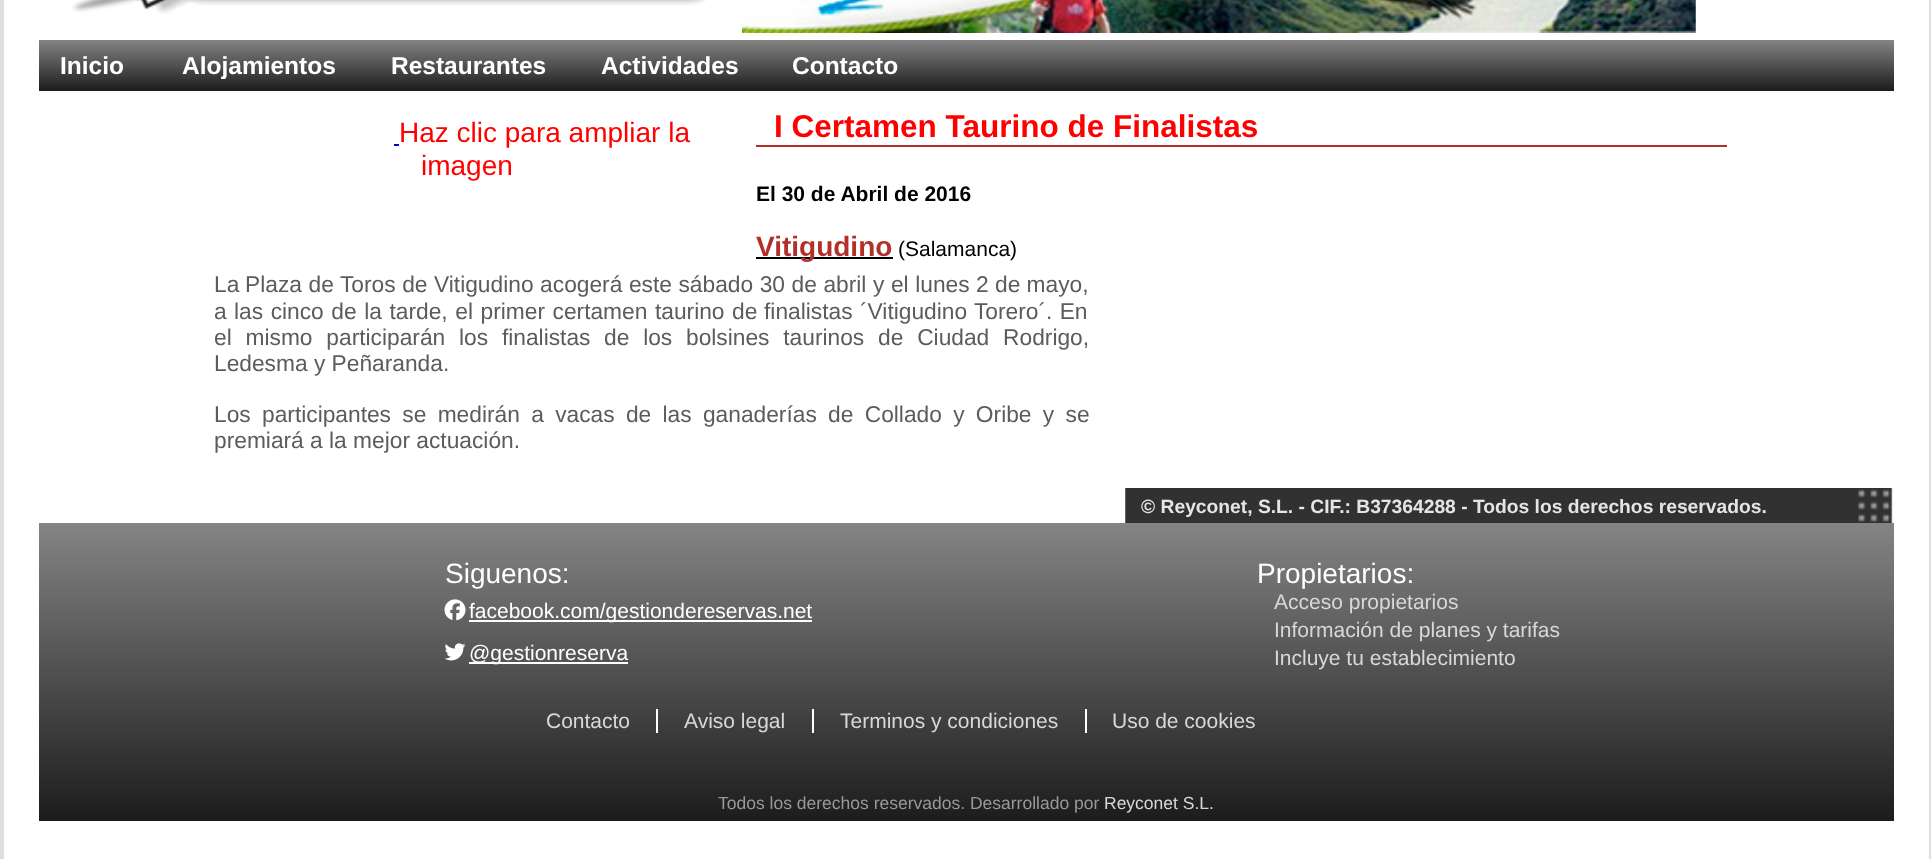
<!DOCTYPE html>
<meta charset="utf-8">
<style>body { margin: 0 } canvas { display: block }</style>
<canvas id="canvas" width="1931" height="859"></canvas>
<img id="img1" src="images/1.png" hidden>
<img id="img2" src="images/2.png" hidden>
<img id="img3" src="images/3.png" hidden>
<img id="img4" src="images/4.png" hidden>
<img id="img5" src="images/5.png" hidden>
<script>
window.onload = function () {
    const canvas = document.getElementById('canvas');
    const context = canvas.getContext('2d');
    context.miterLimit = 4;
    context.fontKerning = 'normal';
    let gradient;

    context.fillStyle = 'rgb(223, 222, 222)';
    context.fillRect(0, 0, 1931, 859);
    context.fillStyle = 'rgb(255, 255, 255)';
    context.fillRect(4, 0, 1925, 859);
    context.drawImage(document.getElementById('img1'), 72, 0, 634, 14);
    context.drawImage(document.getElementById('img2'), 742, 0, 954, 33);
    gradient = context.createLinearGradient(966, 40, 966, 91);
    gradient.addColorStop(0, 'rgb(132, 132, 132)');
    gradient.addColorStop(1, 'rgb(28, 28, 28)');
    context.fillStyle = gradient;
    context.fillRect(39, 40, 1855, 51);
    context.fillStyle = 'rgb(0, 0, 238)';
    context.fillRect(394, 144, 5, 2);
    context.fillStyle = 'rgb(179, 47, 42)';
    context.fillRect(756, 145, 971, 2);
    context.fillStyle = 'rgb(0, 0, 0)';
    context.fillRect(756, 257, 137, 2);
    context.drawImage(document.getElementById('img3'), 1125, 488, 768, 35);
    gradient = context.createLinearGradient(966, 523, 966, 821);
    gradient.addColorStop(0, 'rgb(132, 132, 132)');
    gradient.addColorStop(1, 'rgb(28, 28, 28)');
    context.fillStyle = gradient;
    context.fillRect(39, 523, 1855, 298);
    context.drawImage(document.getElementById('img4'), 444, 599, 22, 22);
    context.fillStyle = 'rgb(255, 255, 255)';
    context.fillRect(469, 620, 343, 2);
    context.drawImage(document.getElementById('img5'), 444, 643, 22, 18);
    context.fillRect(469, 662, 159, 2);
    context.fillRect(656, 709, 2, 24);
    context.fillRect(812, 709, 2, 24);
    context.fillRect(1085, 709, 2, 24);
    context.font = 'bold 24.5px Liberation Sans';
    context.fillText('Inicio', 60, 74);
    context.fillText('Alojamientos', 182, 74);
    context.fillText('Restaurantes', 391, 74);
    context.fillText('Actividades', 601, 74);
    context.fillText('Contacto', 792, 74);
    context.font = '28px Liberation Sans';
    context.fillStyle = 'rgb(255, 0, 0)';
    context.fillText('Haz clic para ampliar la', 399, 142);
    context.fillText('imagen', 421, 175);
    context.font = 'bold 31.5px Liberation Sans';
    context.fillText('I Certamen Taurino de Finalistas', 774, 137);
    context.font = 'bold 21px Liberation Sans';
    context.fillStyle = 'rgb(0, 0, 0)';
    context.fillText('El 30 de Abril de 2016', 756, 201);
    context.font = 'bold 28px Liberation Sans';
    context.fillStyle = 'rgb(179, 47, 42)';
    context.fillText('Vitigudino', 756, 256);
    context.font = '21px Liberation Sans';
    context.fillStyle = 'rgb(0, 0, 0)';
    context.fillText('(Salamanca)', 898, 256);
    context.font = '22.75px Liberation Sans';
    context.fillStyle = 'rgb(92, 92, 92)';
    context.fillText('La', 214, 292);
    context.wordSpacing = '0.25px';
    context.fillText('Plaza de Toros de Vitigudino acogerá este sábado 30 de abril y el lunes', 245, 292);
    context.wordSpacing = '0px';
    context.fillText('2 de mayo,', 976, 292);
    context.fillText('a', 214, 319);
    context.wordSpacing = '1.25px';
    context.fillText('las cinco de la tarde, el primer certamen taurino de', 234, 319);
    context.wordSpacing = '0px';
    context.fillText('finalistas', 764, 319);
    context.wordSpacing = '1px';
    context.fillText('´Vitigudino Torero´. En', 860, 319);
    context.wordSpacing = '7.5px';
    context.fillText('el mismo participarán los finalistas', 214, 345);
    context.fillText('de los', 604, 345);
    context.fillText('bolsines taurinos de Ciudad Rodrigo,', 686, 345);
    context.wordSpacing = '0px';
    context.fillText('Ledesma y Peñaranda.', 214, 371);
    context.wordSpacing = '5px';
    context.fillText('Los participantes se medirán a vacas de las ganaderías de Collado y Oribe y se', 214, 422);
    context.wordSpacing = '0px';
    context.fillText('premiará a la mejor actuación.', 214, 448);
    context.font = 'bold 19.25px Liberation Sans';
    context.fillStyle = 'rgb(229, 229, 229)';
    context.fillText('© Reyconet, S.L. - CIF.: B37364288 - Todos los derechos reservados.', 1141, 513);
    context.font = '28px Liberation Sans';
    context.fillStyle = 'rgb(255, 255, 255)';
    context.fillText('Siguenos:', 445, 583);
    context.font = '21px Liberation Sans';
    context.fillText('facebook.com/gestiondereservas.net', 469, 618);
    context.fillText('@gestionreserva', 469, 660);
    context.font = '28px Liberation Sans';
    context.fillText('Propietarios:', 1257, 583);
    context.font = '21px Liberation Sans';
    context.fillStyle = 'rgb(216, 216, 216)';
    context.fillText('Acceso propietarios', 1274, 609);
    context.fillText('Información de planes y tarifas', 1274, 637);
    context.fillText('Incluye tu establecimiento', 1274, 665);
    context.fillText('Contacto', 546, 728);
    context.fillText('Aviso legal', 684, 728);
    context.fillText('Terminos y condiciones', 840, 728);
    context.fillText('Uso de cookies', 1112, 728);
    context.font = '17.5px Liberation Sans';
    context.fillStyle = 'rgb(153, 153, 153)';
    context.fillText('Todos los derechos reservados. Desarrollado por', 718, 809);
    context.fillStyle = 'rgb(216, 216, 216)';
    context.fillText('Reyconet S.L.', 1104, 809);
};
</script>
